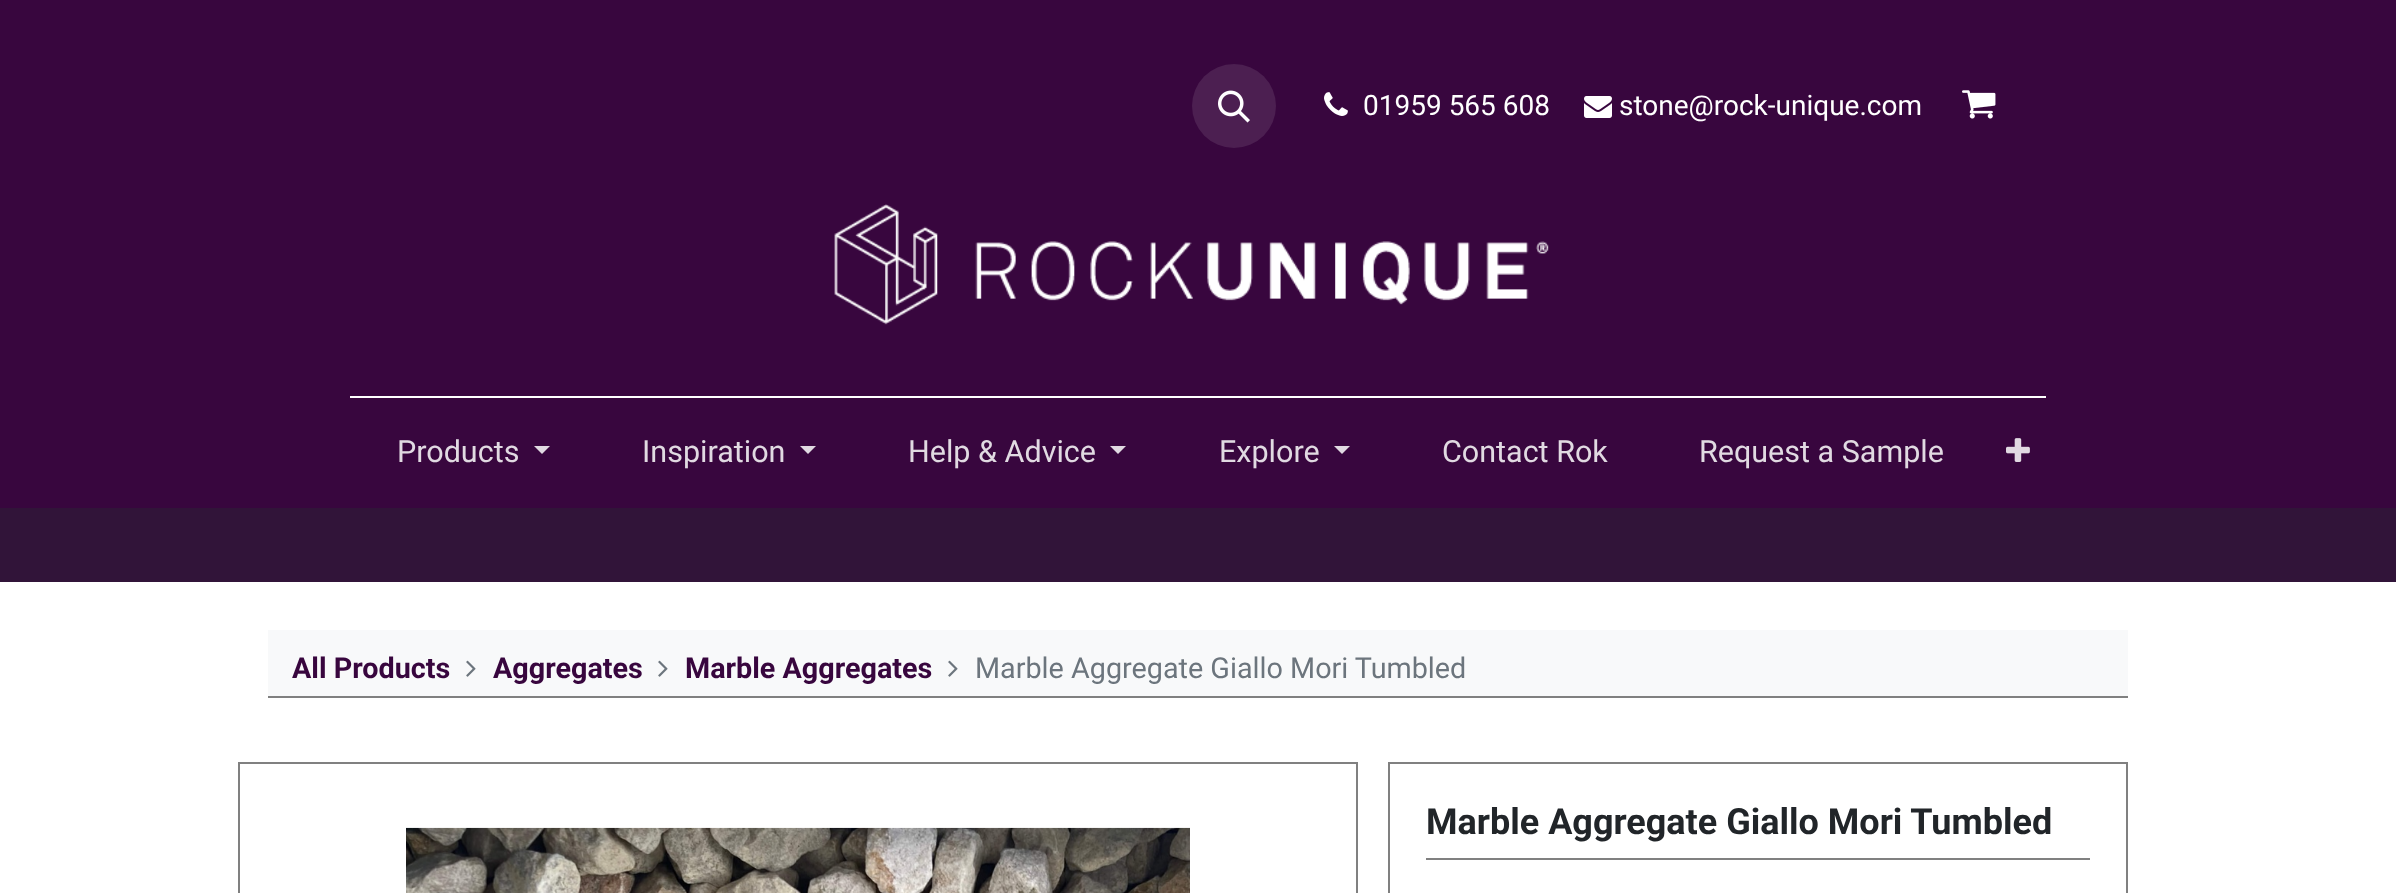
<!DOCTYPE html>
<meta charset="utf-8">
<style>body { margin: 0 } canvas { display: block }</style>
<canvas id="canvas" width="2396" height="893"></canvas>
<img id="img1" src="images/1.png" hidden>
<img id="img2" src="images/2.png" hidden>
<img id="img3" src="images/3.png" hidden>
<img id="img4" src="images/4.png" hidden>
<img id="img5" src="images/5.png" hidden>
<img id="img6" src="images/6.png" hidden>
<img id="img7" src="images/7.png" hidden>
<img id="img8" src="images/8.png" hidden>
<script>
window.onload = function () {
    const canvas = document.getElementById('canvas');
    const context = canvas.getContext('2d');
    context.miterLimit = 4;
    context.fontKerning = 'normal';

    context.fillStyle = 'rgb(255, 255, 255)';
    context.fillRect(0, 0, 2396, 893);
    context.fillStyle = 'rgb(49, 20, 57)';
    context.fillRect(0, 508, 2396, 74);
    context.fillStyle = 'rgb(56, 6, 62)';
    context.fillRect(0, 0, 2396, 508);
    context.fillStyle = 'rgb(76, 31, 81)';
    context.beginPath();
    context.arc(1234, 106, 42, 0, 2 * Math.PI);
    context.fill();
    context.drawImage(document.getElementById('img1'), 1218, 90, 32, 33);
    context.drawImage(document.getElementById('img2'), 1324, 92, 24, 24);
    context.drawImage(document.getElementById('img3'), 1584, 96, 28, 22);
    context.drawImage(document.getElementById('img4'), 1962, 90, 34, 29);
    context.drawImage(document.getElementById('img5'), 834, 204, 715, 121);
    context.fillStyle = 'rgb(255, 255, 255)';
    context.fillRect(350, 396, 1696, 2);
    context.fillStyle = 'rgb(225, 218, 226)';
    context.beginPath();
    context.moveTo(534, 446);
    context.lineTo(550, 446);
    context.lineTo(542, 454);
    context.closePath();
    context.fill();
    context.beginPath();
    context.moveTo(800, 446);
    context.lineTo(816, 446);
    context.lineTo(808, 454);
    context.closePath();
    context.fill();
    context.beginPath();
    context.moveTo(1110, 446);
    context.lineTo(1126, 446);
    context.lineTo(1118, 454);
    context.closePath();
    context.fill();
    context.beginPath();
    context.moveTo(1334, 446);
    context.lineTo(1350, 446);
    context.lineTo(1342, 454);
    context.closePath();
    context.fill();
    context.drawImage(document.getElementById('img6'), 2006, 438, 24, 24);
    context.fillStyle = 'rgb(248, 249, 250)';
    context.fillRect(268, 630, 1860, 66);
    context.fillStyle = 'rgb(128, 128, 128)';
    context.fillRect(268, 696, 1860, 2);
    context.drawImage(document.getElementById('img7'), 466, 660, 10, 17);
    context.drawImage(document.getElementById('img7'), 658, 660, 10, 17);
    context.drawImage(document.getElementById('img7'), 948, 660, 10, 17);
    context.strokeStyle = 'rgb(128, 128, 128)';
    context.lineWidth = 2;
    context.strokeRect(239, 763, 1118, 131);
    context.drawImage(document.getElementById('img8'), 406, 827, 784, 66);
    context.strokeRect(1389, 763, 738, 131);
    context.fillRect(1426, 858, 664, 2);
    context.font = '28px Roboto';
    context.fillStyle = 'rgb(255, 255, 255)';
    context.fillText('01959 565 608', 1363, 115);
    context.fillText('stone@rock-unique.com', 1619, 115);
    context.font = '30.5px Roboto';
    context.fillStyle = 'rgb(225, 218, 226)';
    context.fillText('Products', 397, 462);
    context.fillText('Inspiration', 642, 462);
    context.fillText('Help & Advice', 908, 462);
    context.fillText('Explore', 1219, 462);
    context.fillText('Contact Rok', 1442, 462);
    context.fillText('Request a Sample', 1699, 462);
    context.font = 'bold 28.75px Roboto';
    context.fillStyle = 'rgb(56, 6, 62)';
    context.fillText('All Products', 292, 678);
    context.fillText('Aggregates', 493, 678);
    context.fillText('Marble Aggregates', 685, 678);
    context.font = '28.75px Roboto';
    context.fillStyle = 'rgb(108, 117, 125)';
    context.fillText('Marble Aggregate Giallo Mori Tumbled', 975, 678);
    context.font = 'bold 36px Roboto';
    context.fillStyle = 'rgb(33, 37, 41)';
    context.fillText('Marble Aggregate Giallo Mori Tumbled', 1426, 834);
};
</script>
